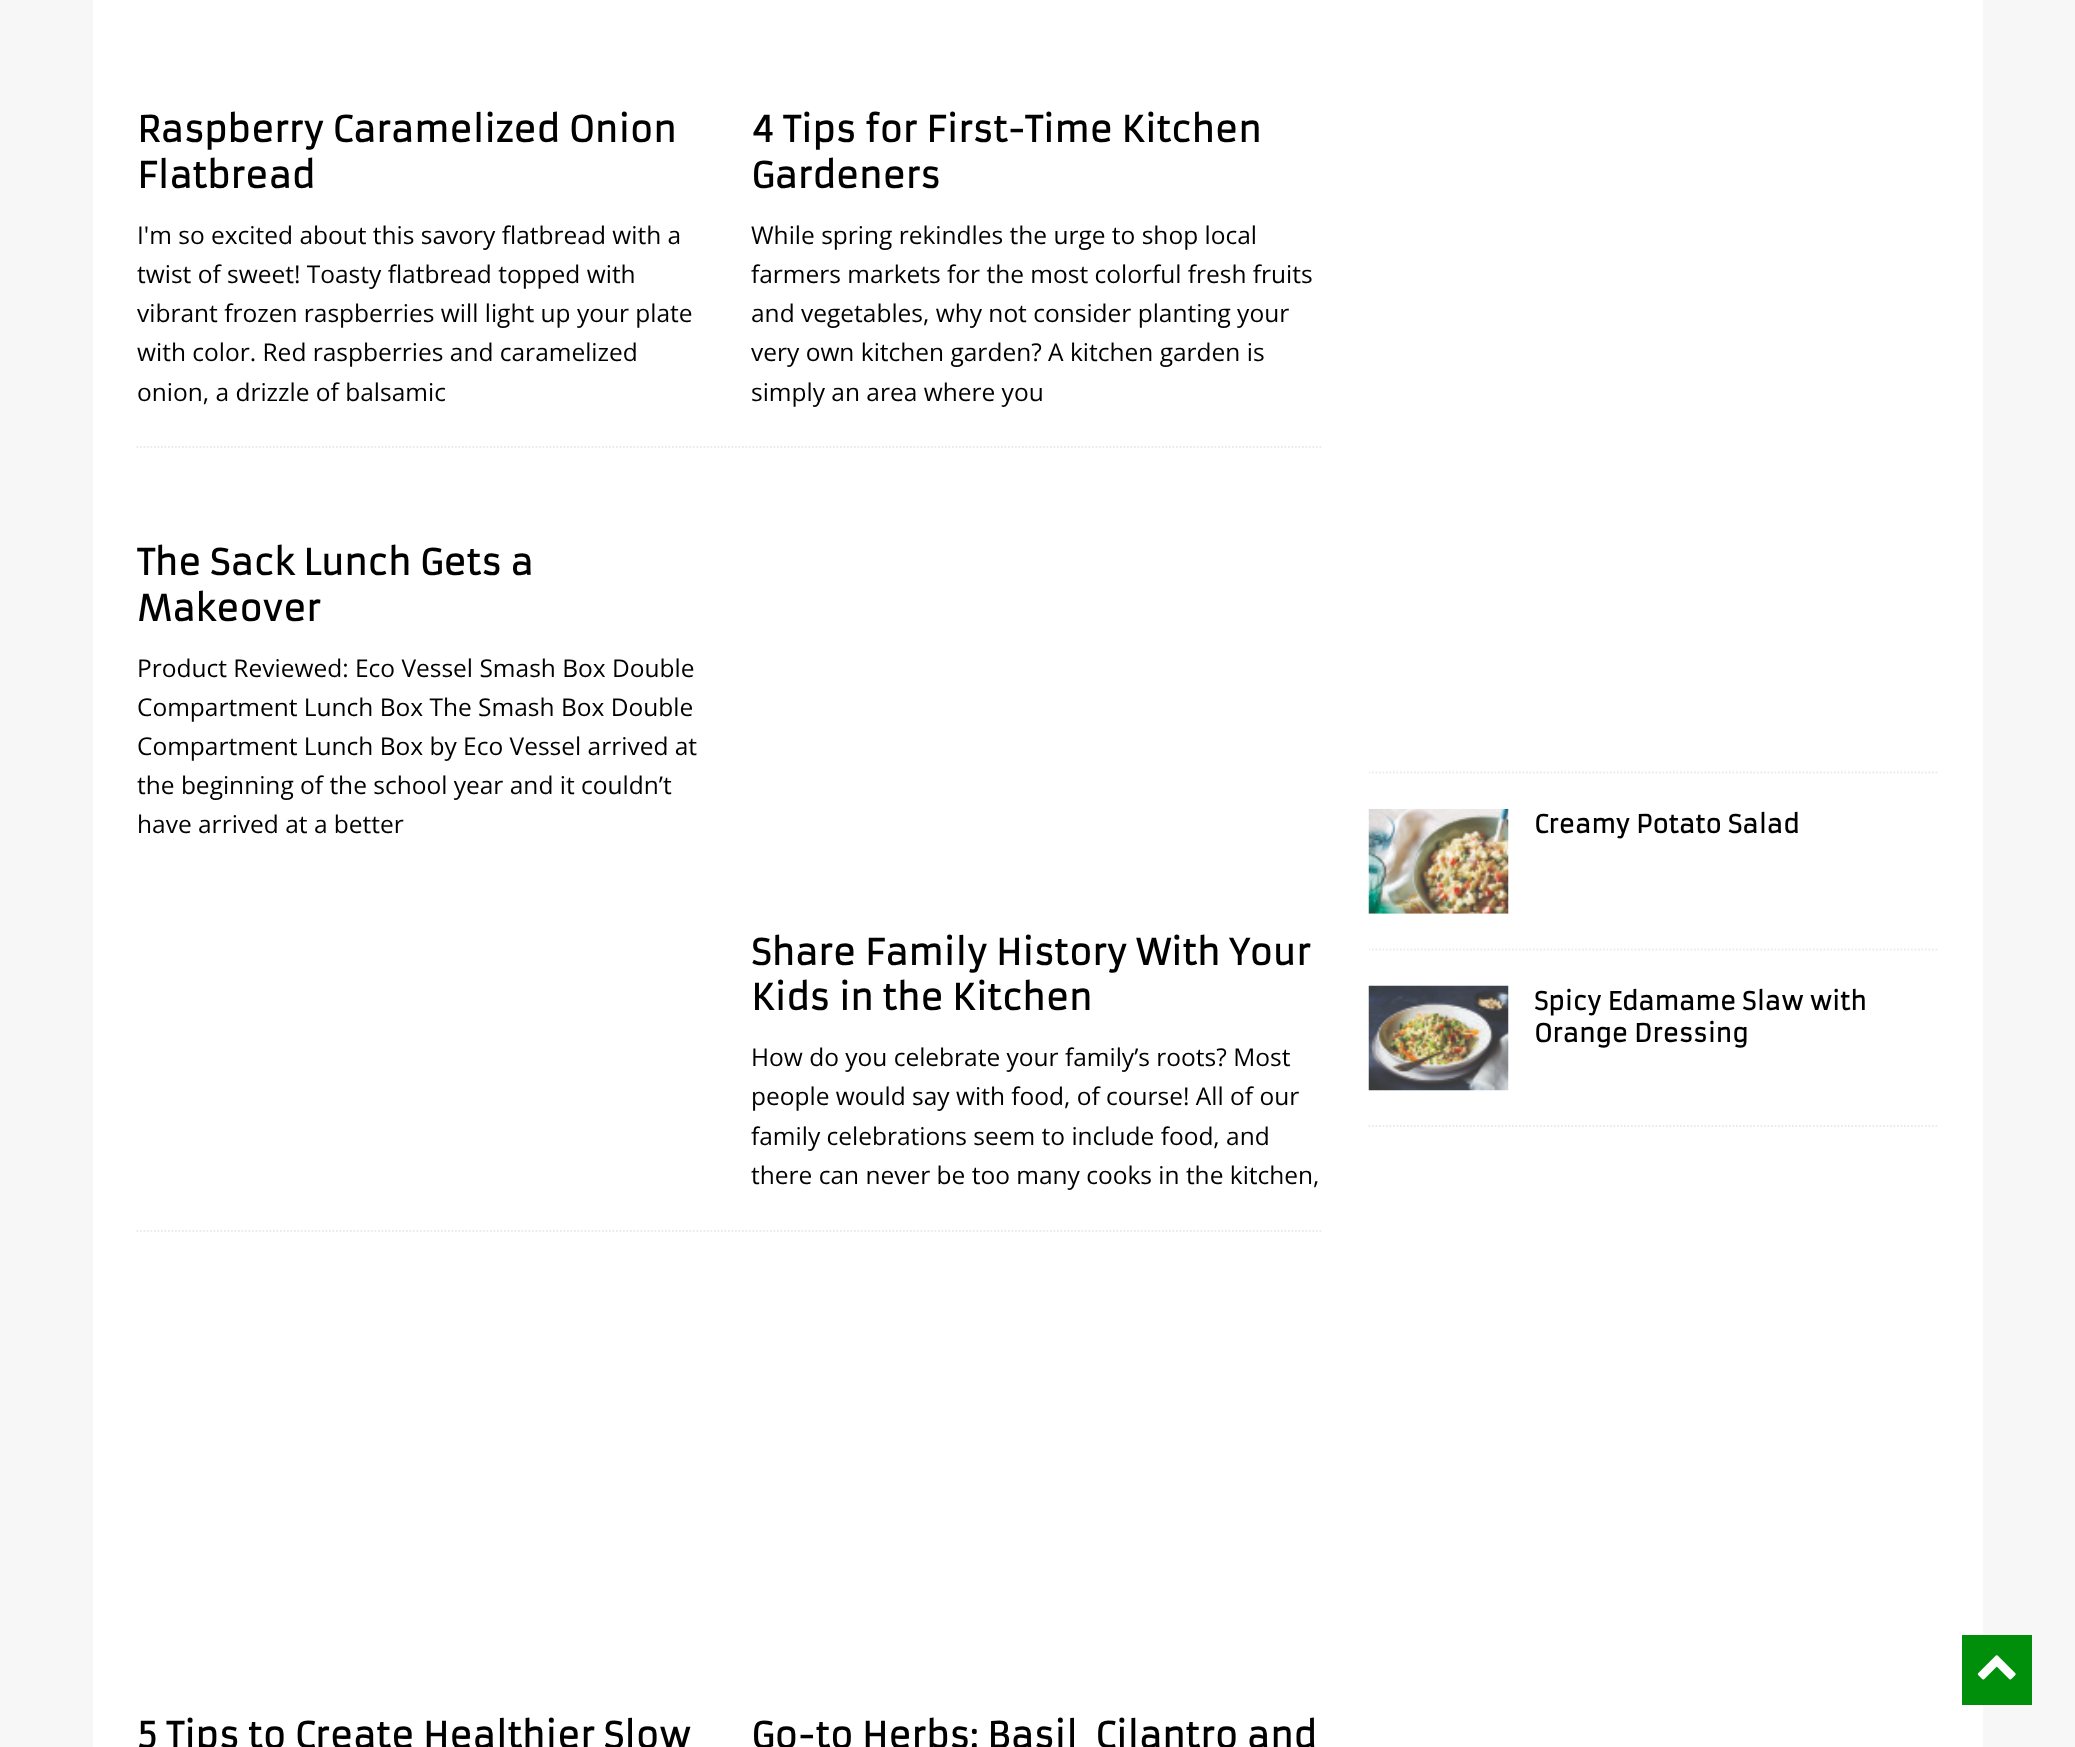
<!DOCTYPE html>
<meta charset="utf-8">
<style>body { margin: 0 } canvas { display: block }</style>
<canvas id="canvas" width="2075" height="1747"></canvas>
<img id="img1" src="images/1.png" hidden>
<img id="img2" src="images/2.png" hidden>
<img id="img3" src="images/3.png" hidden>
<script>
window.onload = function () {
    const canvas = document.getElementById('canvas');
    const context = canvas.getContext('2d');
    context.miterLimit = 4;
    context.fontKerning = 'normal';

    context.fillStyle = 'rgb(247, 247, 247)';
    context.fillRect(0, 0, 2075, 1747);
    context.fillStyle = 'rgb(255, 255, 255)';
    context.fillRect(93, 0, 1890, 1747);
    context.beginPath();
    context.moveTo(136.5, 447);
    context.lineTo(1323, 447);
    context.strokeStyle = 'rgb(235, 235, 235)';
    context.lineWidth = 1.8;
    context.setLineDash([1.75, 1.75]);
    context.stroke();
    context.beginPath();
    context.moveTo(136.5, 1231);
    context.lineTo(1323, 1231);
    context.stroke();
    context.save();
    context.beginPath();
    context.rect(1369, 0, 570, 1127);
    context.clip();
    context.beginPath();
    context.moveTo(1368.5, 772.5);
    context.lineTo(1939, 772.5);
    context.stroke();
    context.beginPath();
    context.moveTo(1368.5, 949.5);
    context.lineTo(1939, 949.5);
    context.stroke();
    context.restore();
    context.drawImage(document.getElementById('img1'), 1368, 808, 141, 106);
    context.beginPath();
    context.moveTo(1368.5, 1126);
    context.lineTo(1939, 1126);
    context.stroke();
    context.drawImage(document.getElementById('img2'), 1368, 985, 141, 106);
    context.fillStyle = 'rgb(0, 143, 10)';
    context.fillRect(1962, 1635, 70, 70);
    context.drawImage(document.getElementById('img3'), 1977, 1655, 39, 25);
    context.font = 'bold 35px Armata';
    context.fillStyle = 'rgb(0, 0, 0)';
    context.fillText('Raspberry Caramelized Onion', 137, 142);
    context.fillText('Flatbread', 137, 188);
    context.font = '24.5px Open Sans';
    context.fillText('I\'m so excited about this savory flatbread with a', 137, 244);
    context.fillText('twist of sweet! Toasty flatbread topped with', 137, 283);
    context.fillText('vibrant frozen raspberries will light up your plate', 137, 322);
    context.fillText('with color. Red raspberries and caramelized', 137, 361);
    context.fillText('onion, a drizzle of balsamic', 137, 401);
    context.font = 'bold 35px Armata';
    context.fillText('4 Tips for First-Time Kitchen', 751, 142);
    context.fillText('Gardeners', 751, 188);
    context.font = '24.5px Open Sans';
    context.fillText('While spring rekindles the urge to shop local', 751, 244);
    context.fillText('farmers markets for the most colorful fresh fruits', 751, 283);
    context.fillText('and vegetables, why not consider planting your', 751, 322);
    context.fillText('very own kitchen garden? A kitchen garden is', 751, 361);
    context.fillText('simply an area where you', 751, 401);
    context.save();
    context.beginPath();
    context.rect(137, 483, 572, 362);
    context.clip();
    context.font = 'bold 35px Armata';
    context.fillText('The Sack Lunch Gets a', 137, 575);
    context.restore();
    context.font = 'bold 35px Armata';
    context.fillText('Makeover', 137, 621);
    context.font = '24.5px Open Sans';
    context.fillText('Product Reviewed: Eco Vessel Smash Box Double', 137, 677);
    context.fillText('Compartment Lunch Box The Smash Box Double', 137, 716);
    context.fillText('Compartment Lunch Box by Eco Vessel arrived at', 137, 755);
    context.fillText('the beginning of the school year and it couldn’t', 137, 794);
    context.fillText('have arrived at a better', 137, 833);
    context.font = 'bold 35px Armata';
    context.fillText('Share Family History With Your', 751, 965);
    context.fillText('Kids in the Kitchen', 751, 1010);
    context.font = '24.5px Open Sans';
    context.fillText('How do you celebrate your family’s roots? Most', 751, 1066);
    context.fillText('people would say with food, of course! All of our', 751, 1105);
    context.fillText('family celebrations seem to include food, and', 751, 1145);
    context.fillText('there can never be too many cooks in the kitchen,', 751, 1184);
    context.font = 'bold 35px Armata';
    context.fillText('5 Tips to Create Healthier Slow', 137, 1748);
    context.fillText('Go-to Herbs: Basil', 751, 1748);
    context.fillText('Cilantro and', 1095, 1748);
    context.font = 'bold 24.5px Armata';
    context.fillText('Creamy Potato Salad', 1534, 833);
    context.fillText('Spicy Edamame Slaw with', 1534, 1010);
    context.fillText('Orange Dressing', 1534, 1042);
};
</script>
